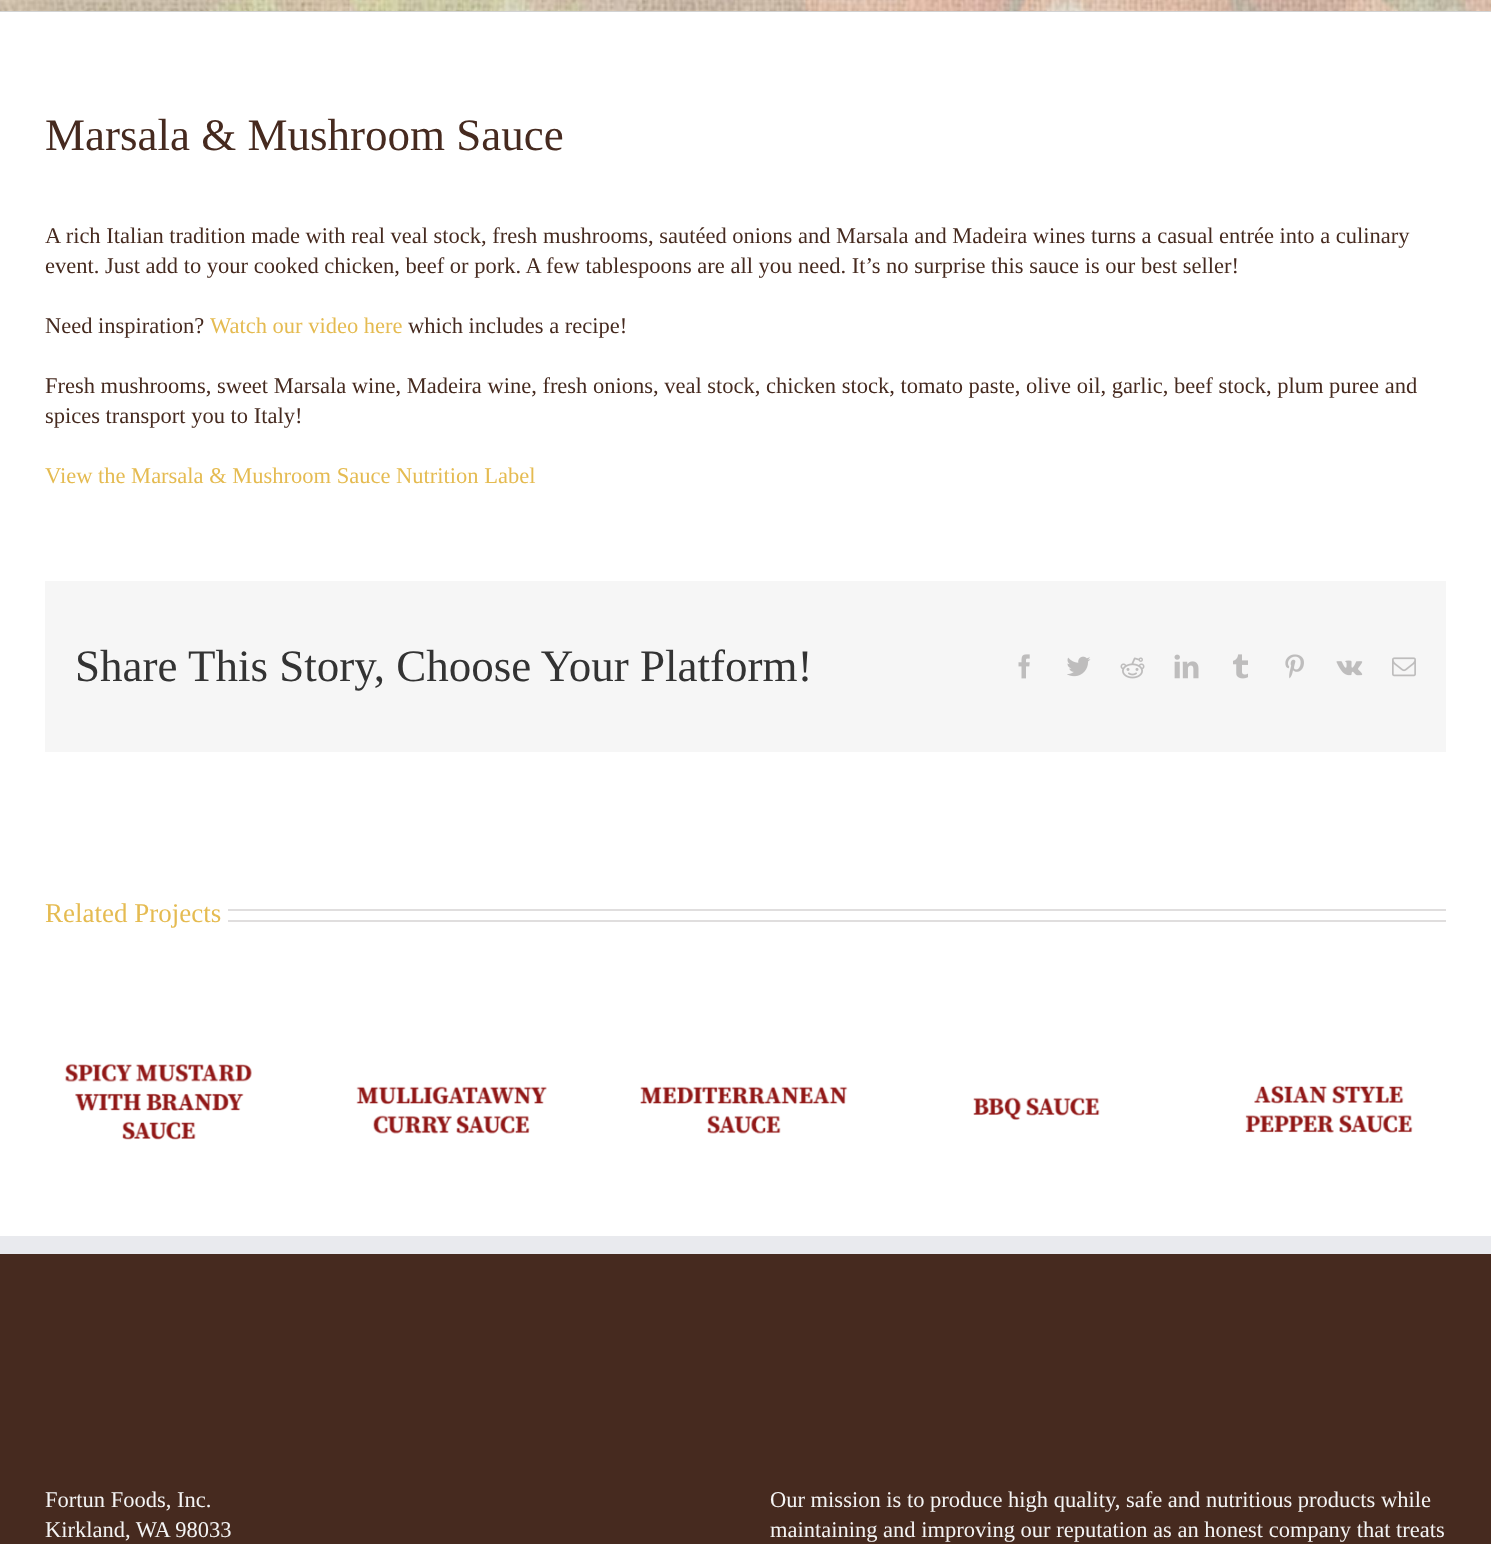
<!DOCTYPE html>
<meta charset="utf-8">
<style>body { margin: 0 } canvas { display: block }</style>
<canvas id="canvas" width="1491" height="1544"></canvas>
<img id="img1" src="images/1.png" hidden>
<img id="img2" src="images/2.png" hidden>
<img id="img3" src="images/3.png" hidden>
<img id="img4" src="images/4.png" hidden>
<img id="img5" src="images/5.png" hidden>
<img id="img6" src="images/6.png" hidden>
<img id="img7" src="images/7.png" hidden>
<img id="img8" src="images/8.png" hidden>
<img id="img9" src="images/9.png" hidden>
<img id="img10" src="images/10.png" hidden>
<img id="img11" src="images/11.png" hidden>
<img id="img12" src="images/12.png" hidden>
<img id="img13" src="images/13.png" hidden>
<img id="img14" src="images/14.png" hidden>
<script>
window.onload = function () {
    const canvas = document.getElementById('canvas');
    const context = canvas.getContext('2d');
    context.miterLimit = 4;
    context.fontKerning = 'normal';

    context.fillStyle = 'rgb(255, 255, 255)';
    context.fillRect(0, 0, 1491, 1544);
    context.drawImage(document.getElementById('img1'), 0, 0, 1491, 11);
    context.fillStyle = 'rgb(210, 211, 212)';
    context.fillRect(0, 11, 1491, 1);
    context.fillStyle = 'rgb(246, 246, 246)';
    context.fillRect(45, 581, 1401, 171);
    context.drawImage(document.getElementById('img2'), 1018, 654, 12, 25);
    context.drawImage(document.getElementById('img3'), 1067, 656, 24, 21);
    context.drawImage(document.getElementById('img4'), 1120, 657, 25, 22);
    context.drawImage(document.getElementById('img5'), 1174, 654, 25, 25);
    context.drawImage(document.getElementById('img6'), 1233, 654, 15, 25);
    context.drawImage(document.getElementById('img7'), 1285, 654, 19, 25);
    context.drawImage(document.getElementById('img8'), 1336, 660, 27, 16);
    context.drawImage(document.getElementById('img9'), 1392, 657, 24, 20);
    context.fillStyle = 'rgb(224, 222, 222)';
    context.fillRect(228, 909, 1218, 2);
    context.fillRect(228, 920, 1218, 2);
    context.drawImage(document.getElementById('img10'), 65, 1063, 187, 77);
    context.drawImage(document.getElementById('img11'), 356, 1086, 191, 48);
    context.drawImage(document.getElementById('img12'), 640, 1086, 208, 48);
    context.drawImage(document.getElementById('img13'), 973, 1097, 127, 23);
    context.drawImage(document.getElementById('img14'), 1245, 1085, 168, 48);
    context.fillStyle = 'rgb(70, 42, 31)';
    context.fillRect(0, 1254, 1491, 290);
    context.fillStyle = 'rgb(233, 234, 238)';
    context.fillRect(0, 1236, 1491, 18);
    context.font = '45px Liberation Serif';
    context.fillStyle = 'rgb(70, 42, 31)';
    context.fillText('Marsala & Mushroom Sauce', 45, 150);
    context.font = '22.5px Liberation Serif';
    context.fillText('A rich Italian tradition made with real veal stock, fresh mushrooms, sautéed onions and Marsala and Madeira wines turns a casual entrée into a culinary', 45, 243);
    context.fillText('event. Just add to your cooked chicken, beef or pork. A few tablespoons are all you need. It’s no surprise this sauce is our best seller!', 45, 273);
    context.fillText('Need inspiration?', 45, 333);
    context.fillStyle = 'rgb(229, 187, 81)';
    context.fillText('Watch our video here', 210, 333);
    context.fillStyle = 'rgb(70, 42, 31)';
    context.fillText('which includes a recipe!', 408, 333);
    context.fillText('Fresh mushrooms, sweet Marsala wine, Madeira wine, fresh onions, veal stock, chicken stock, tomato paste, olive oil, garlic, beef stock, plum puree and', 45, 393);
    context.fillText('spices transport you to Italy!', 45, 423);
    context.fillStyle = 'rgb(229, 187, 81)';
    context.fillText('View the Marsala & Mushroom Sauce Nutrition Label', 45, 483);
    context.font = '45px Liberation Serif';
    context.fillStyle = 'rgb(51, 51, 51)';
    context.fillText('Share This Story, Choose Your Platform!', 75, 681);
    context.font = '27px Liberation Serif';
    context.fillStyle = 'rgb(229, 187, 81)';
    context.fillText('Related Projects', 45, 922);
    context.font = '22.5px Liberation Serif';
    context.fillStyle = 'rgb(244, 244, 244)';
    context.fillText('Fortun Foods, Inc.', 45, 1507);
    context.fillText('Kirkland, WA 98033', 45, 1537);
    context.fillText('Our mission is to produce high quality, safe and nutritious products while', 770, 1507);
    context.fillText('maintaining and improving our reputation as an honest company that treats', 770, 1537);
};
</script>
